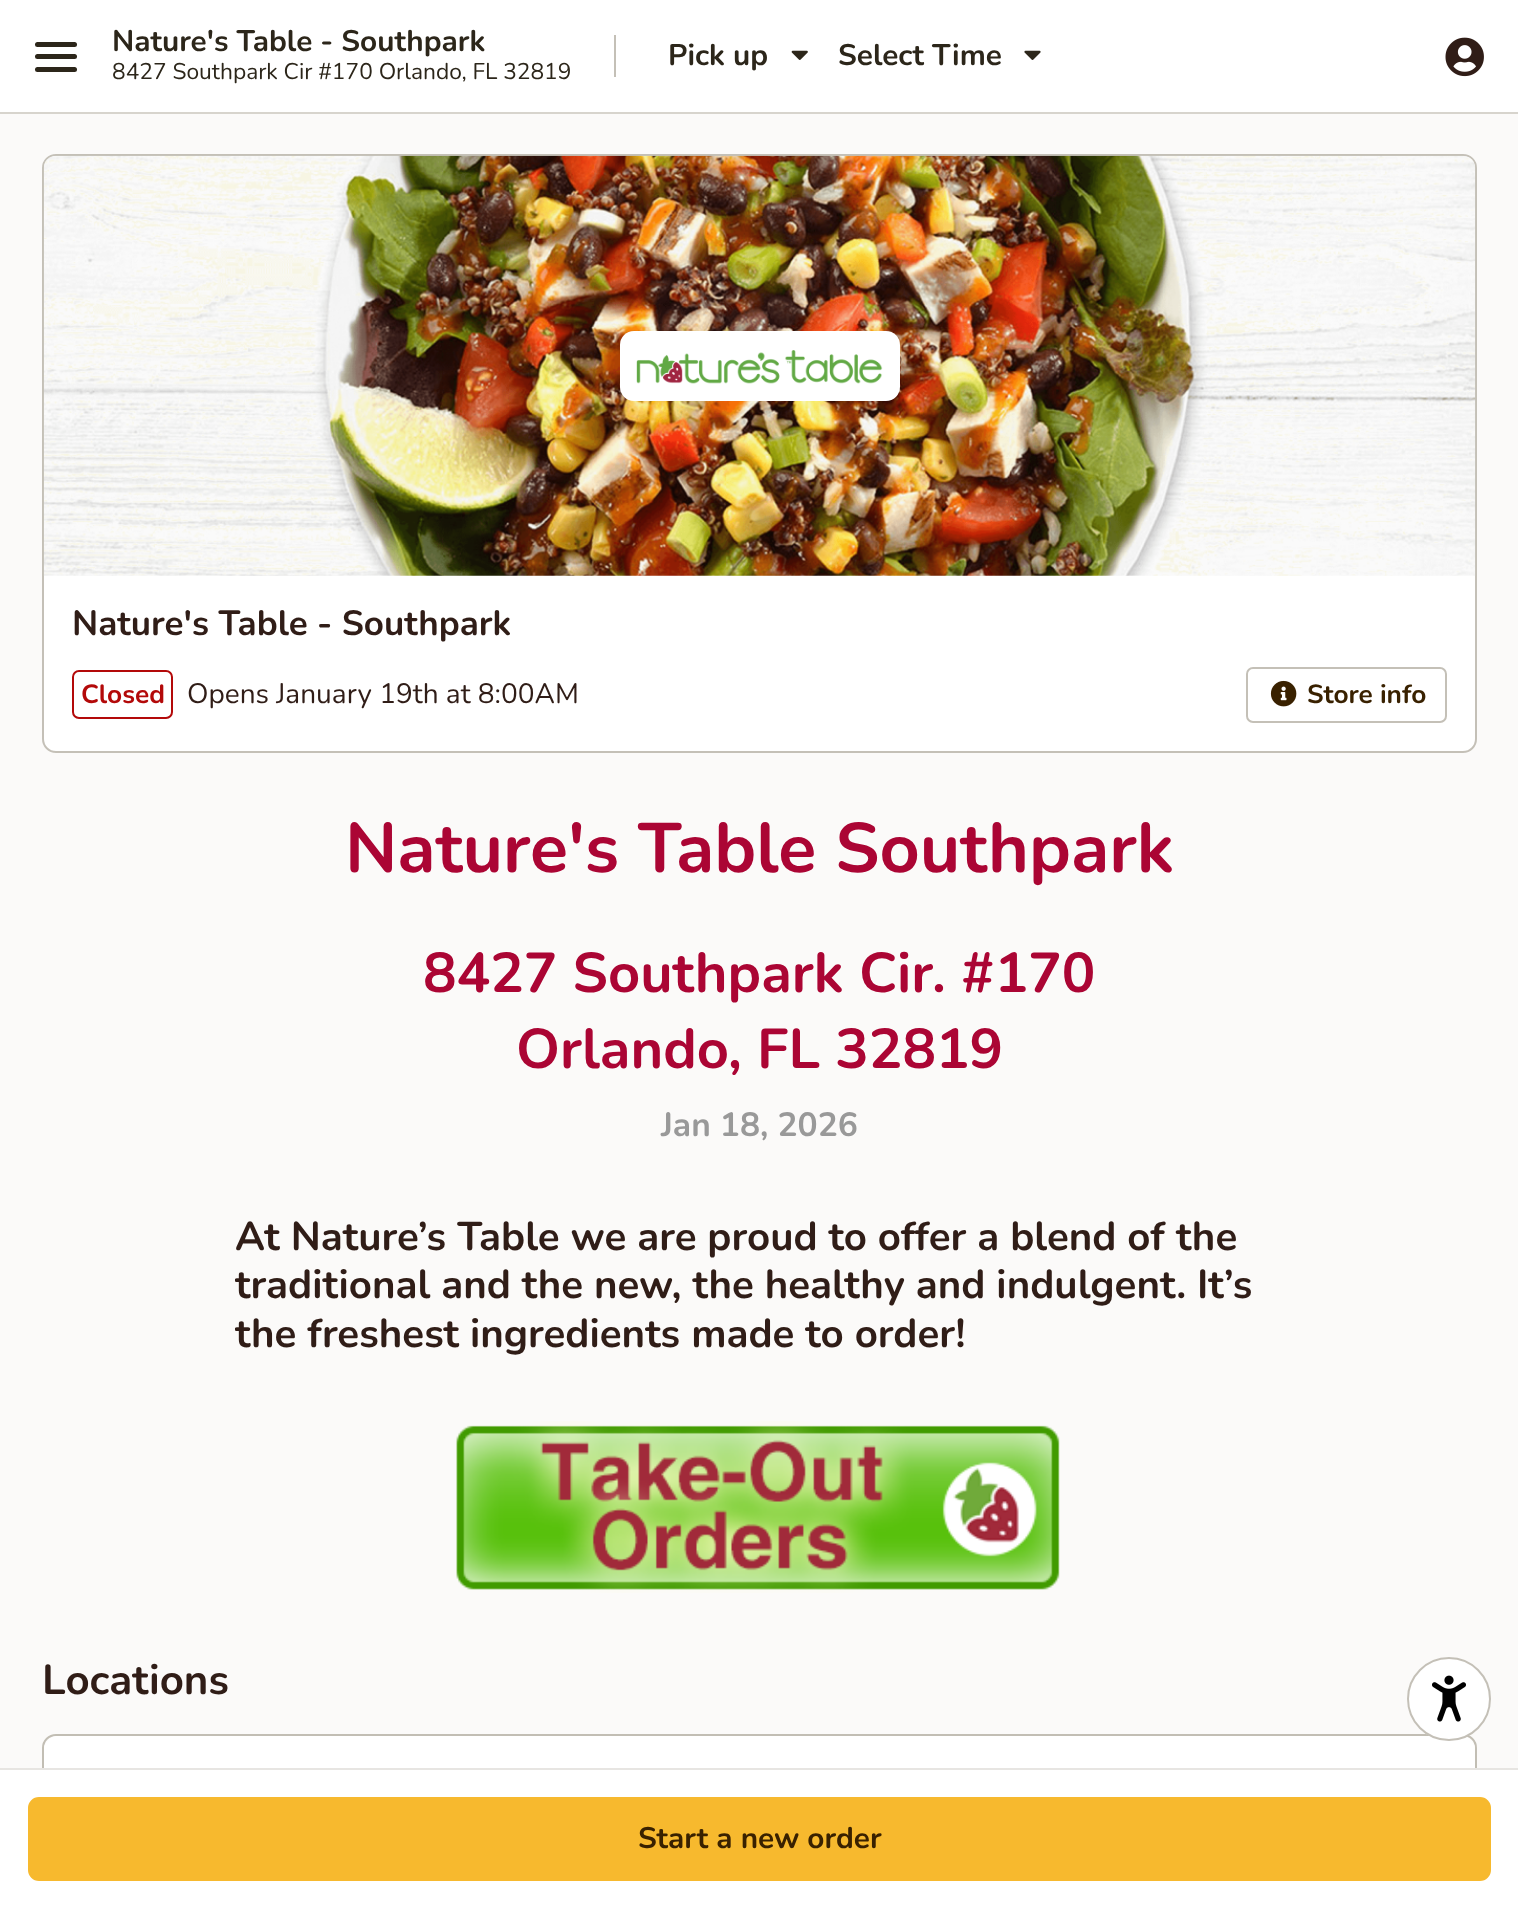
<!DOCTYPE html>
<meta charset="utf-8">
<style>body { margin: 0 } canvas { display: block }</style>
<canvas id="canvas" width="1518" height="1908"></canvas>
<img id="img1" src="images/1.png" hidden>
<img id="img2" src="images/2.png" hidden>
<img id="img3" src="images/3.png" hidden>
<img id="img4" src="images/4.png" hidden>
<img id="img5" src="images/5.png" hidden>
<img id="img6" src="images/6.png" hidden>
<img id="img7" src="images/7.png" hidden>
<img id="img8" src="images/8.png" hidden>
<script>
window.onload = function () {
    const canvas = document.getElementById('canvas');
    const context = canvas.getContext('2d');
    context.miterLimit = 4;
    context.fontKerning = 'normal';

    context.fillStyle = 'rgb(251, 250, 249)';
    context.fillRect(0, 0, 1518, 1908);
    context.fillStyle = 'rgb(215, 212, 205)';
    context.fillRect(0, 112, 1518, 2);
    context.fillStyle = 'rgb(255, 255, 255)';
    context.fillRect(0, 0, 1518, 112);
    context.fillStyle = 'rgb(44, 38, 26)';
    context.beginPath();
    context.roundRect(35, 42, 42, 5, 2.5);
    context.fill();
    context.beginPath();
    context.roundRect(35, 54, 42, 5, 2.5);
    context.fill();
    context.beginPath();
    context.roundRect(35, 67, 42, 5, 2.5);
    context.fill();
    context.fillStyle = 'rgb(196, 192, 183)';
    context.fillRect(614, 35, 2, 42);
    context.drawImage(document.getElementById('img1'), 791, 50, 17, 10);
    context.drawImage(document.getElementById('img2'), 1024, 50, 17, 10);
    context.drawImage(document.getElementById('img3'), 1445, 37, 39, 40);
    context.fillStyle = 'rgb(255, 255, 255)';
    context.beginPath();
    context.roundRect(42, 154, 1435, 599, 14);
    context.fill();
    context.beginPath();
    context.roundRect(43, 155, 1433, 597, 13);
    context.strokeStyle = 'rgba(148, 141, 124, 0.55)';
    context.lineWidth = 2;
    context.stroke();
    context.drawImage(document.getElementById('img4'), 43, 155, 1433, 421);
    context.beginPath();
    context.roundRect(620, 331, 280, 70, 14);
    context.fill();
    context.drawImage(document.getElementById('img5'), 636, 350, 247, 34);
    context.beginPath();
    context.roundRect(73, 671, 99, 47, 6);
    context.strokeStyle = 'rgb(179, 9, 9)';
    context.stroke();
    context.beginPath();
    context.roundRect(1247, 668, 199, 54, 6);
    context.strokeStyle = 'rgb(196, 192, 183)';
    context.stroke();
    context.drawImage(document.getElementById('img6'), 1270, 680, 27, 27);
    context.drawImage(document.getElementById('img7'), 456, 1421, 604, 172);
    context.beginPath();
    context.roundRect(43, 1735, 1433, 145, 13);
    context.strokeStyle = 'rgb(194, 190, 180)';
    context.stroke();
    context.beginPath();
    context.roundRect(44, 1736, 1431, 144, 14);
    context.fill();
    context.fillRect(0, 1770, 1518, 138);
    context.fillStyle = 'rgb(231, 229, 226)';
    context.fillRect(0, 1768, 1518, 2);
    context.fillStyle = 'rgb(247, 185, 46)';
    context.beginPath();
    context.roundRect(29, 1798, 1461, 82, 10);
    context.fill();
    context.strokeStyle = 'rgb(247, 185, 46)';
    context.stroke();
    context.fillStyle = 'rgb(255, 255, 255)';
    context.beginPath();
    context.arc(1449, 1699, 42, 0, 2 * Math.PI);
    context.fill();
    context.beginPath();
    context.arc(1449, 1699, 41, 0, 2 * Math.PI);
    context.strokeStyle = 'rgba(148, 141, 124, 0.55)';
    context.stroke();
    context.drawImage(document.getElementById('img8'), 1432, 1675, 34, 47);
    context.font = 'bold 29.75px Nunito';
    context.fillStyle = 'rgb(44, 38, 26)';
    context.fillText('Nature\'s Table - Southpark', 112, 51);
    context.font = '22.75px Nunito';
    context.fillText('8427 Southpark Cir #170 Orlando, FL 32819', 112, 79);
    context.font = 'bold 29.75px Nunito';
    context.fillText('Pick up', 668, 65);
    context.fillText('Select Time', 838, 65);
    context.font = 'bold 35px Nunito';
    context.fillStyle = 'rgb(48, 29, 23)';
    context.fillText('Nature\'s Table - Southpark', 72, 635);
    context.font = 'bold 26.25px Nunito';
    context.fillStyle = 'rgb(179, 9, 9)';
    context.fillText('Closed', 81, 703);
    context.font = '28px Nunito';
    context.fillStyle = 'rgb(48, 29, 23)';
    context.fillText('Opens January 19th at 8:00AM', 187, 703);
    context.font = 'bold 26.25px Nunito';
    context.fillStyle = 'rgb(57, 33, 0)';
    context.fillText('Store info', 1307, 703);
    context.font = 'bold 70px Nunito';
    context.fillStyle = 'rgb(171, 5, 52)';
    context.fillText('Nature\'s Table Southpark', 345, 872);
    context.font = 'bold 56px Nunito';
    context.fillText('8427 Southpark Cir. #170', 423, 992);
    context.fillText('Orlando, FL 32819', 516, 1068);
    context.font = 'bold 33.5px Nunito';
    context.fillStyle = 'rgb(153, 153, 153)';
    context.fillText('Jan 18, 2026', 661, 1136);
    context.font = 'bold 40.25px Nunito';
    context.fillStyle = 'rgb(48, 29, 23)';
    context.fillText('At Nature’s Table we are proud to offer a blend of the', 235, 1250);
    context.save();
    context.beginPath();
    context.rect(235, 802, 1050, 836);
    context.clip();
    context.fillText('traditional and the new, the healthy and indulgent. It’s', 235, 1298);
    context.fillText('the freshest ingredients made to order!', 235, 1347);
    context.restore();
    context.font = 'bold 42px Nunito';
    context.fillText('Locations', 42, 1694);
    context.font = 'bold 29.75px Nunito';
    context.fillStyle = 'rgb(57, 33, 0)';
    context.fillText('Start a new order', 638, 1848);
};
</script>
